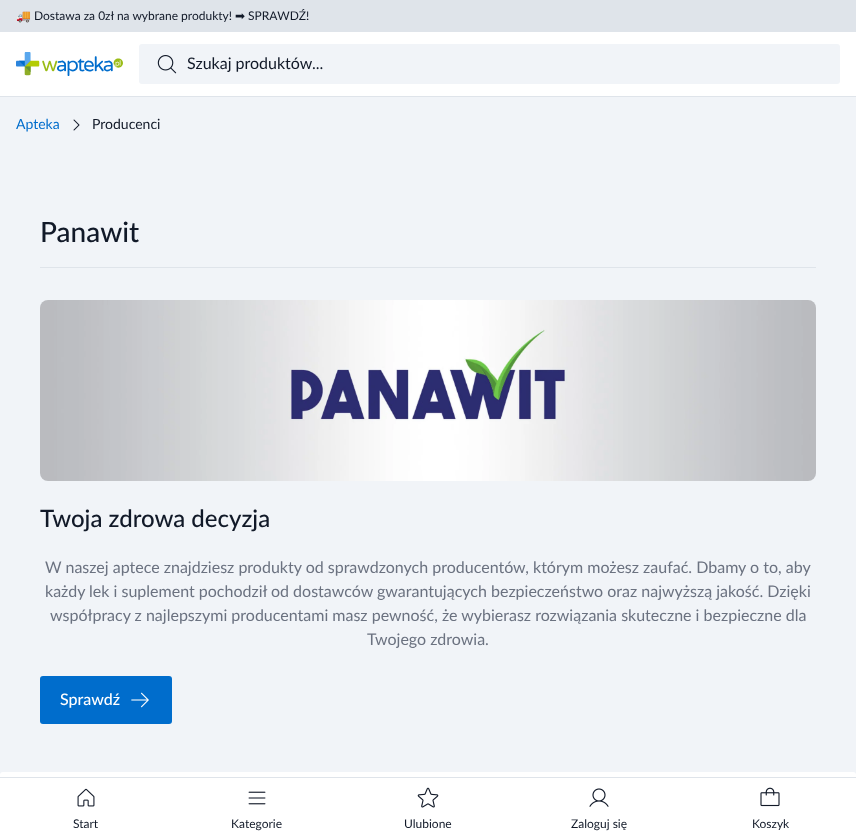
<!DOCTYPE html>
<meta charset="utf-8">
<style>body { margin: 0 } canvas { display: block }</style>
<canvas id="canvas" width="856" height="833"></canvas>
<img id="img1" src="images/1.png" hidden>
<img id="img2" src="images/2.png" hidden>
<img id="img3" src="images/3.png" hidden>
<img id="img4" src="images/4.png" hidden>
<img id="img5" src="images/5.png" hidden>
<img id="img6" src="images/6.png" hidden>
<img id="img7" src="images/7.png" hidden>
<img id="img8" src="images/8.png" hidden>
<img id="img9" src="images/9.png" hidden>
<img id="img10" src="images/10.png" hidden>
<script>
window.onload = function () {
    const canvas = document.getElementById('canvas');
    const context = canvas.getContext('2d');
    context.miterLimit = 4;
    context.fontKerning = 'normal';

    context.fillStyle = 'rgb(241, 244, 248)';
    context.fillRect(0, 0, 856, 833);
    context.fillStyle = 'rgb(223, 228, 234)';
    context.fillRect(0, 0, 856, 32);
    context.fillStyle = 'rgb(255, 255, 255)';
    context.fillRect(0, 32, 856, 64);
    context.fillStyle = 'rgb(223, 228, 234)';
    context.fillRect(0, 96, 856, 1);
    context.drawImage(document.getElementById('img1'), 16, 52, 107, 24);
    context.fillStyle = 'rgb(241, 244, 248)';
    context.beginPath();
    context.roundRect(139, 44, 701, 40, 3);
    context.fill();
    context.drawImage(document.getElementById('img2'), 157, 55, 20, 19);
    context.fillStyle = 'rgb(255, 255, 255)';
    context.beginPath();
    context.roundRect(0, 772, 856, 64, 3);
    context.fill();
    context.fillStyle = 'rgb(223, 228, 234)';
    context.fillRect(0, 777, 856, 1);
    context.drawImage(document.getElementById('img3'), 77, 788, 18, 19);
    context.drawImage(document.getElementById('img4'), 248, 791, 18, 14);
    context.drawImage(document.getElementById('img5'), 417, 787, 22, 21);
    context.drawImage(document.getElementById('img6'), 589, 788, 20, 19);
    context.drawImage(document.getElementById('img7'), 760, 787, 20, 20);
    context.drawImage(document.getElementById('img8'), 73, 119, 7, 12);
    context.fillRect(40, 267, 776, 1);
    context.drawImage(document.getElementById('img9'), 40, 300, 776, 181);
    context.fillStyle = 'rgb(0, 109, 204)';
    context.beginPath();
    context.roundRect(40, 676, 132, 48, 3);
    context.fill();
    context.drawImage(document.getElementById('img10'), 131, 692, 18, 16);
    context.font = '12px Noto Color Emoji';
    context.fillStyle = 'rgb(17, 25, 40)';
    context.fillText('🚚', 16, 20);
    context.font = '12px Lato';
    context.fillText('Dostawa za 0zł na wybrane produkty!', 34, 20);
    context.font = '12px DejaVu Sans';
    context.fillText('➡', 235, 20);
    context.font = '12px Lato';
    context.fillText('SPRAWDŹ!', 248, 20);
    context.font = '16px Lato';
    context.fillText('Szukaj produktów...', 187, 69);
    context.font = '12px Lato';
    context.fillText('Start', 73, 828);
    context.fillText('Kategorie', 231, 828);
    context.fillText('Ulubione', 404, 828);
    context.fillText('Zaloguj się', 571, 828);
    context.fillText('Koszyk', 752, 828);
    context.font = '14px Lato';
    context.fillStyle = 'rgb(0, 109, 204)';
    context.fillText('Apteka', 16, 129);
    context.fillStyle = 'rgb(17, 25, 40)';
    context.fillText('Producenci', 92, 129);
    context.font = '500 28px Lato';
    context.fillText('Panawit', 40, 242);
    context.font = '500 24px Lato';
    context.fillText('Twoja zdrowa decyzja', 40, 527);
    context.font = '16px Lato';
    context.fillStyle = 'rgb(107, 114, 128)';
    context.fillText('W naszej aptece znajdziesz produkty od sprawdzonych producentów, którym możesz zaufać. Dbamy o to, aby', 45, 573);
    context.fillText('każdy lek i suplement pochodził od dostawców gwarantujących bezpieczeństwo oraz najwyższą jakość. Dzięki', 45, 597);
    context.fillText('współpracy z najlepszymi producentami masz pewność, że wybierasz rozwiązania skuteczne i bezpieczne dla', 50, 621);
    context.fillText('Twojego zdrowia.', 367, 645);
    context.font = '500 16px Lato';
    context.fillStyle = 'rgb(255, 255, 255)';
    context.fillText('Sprawdź', 60, 705);
};
</script>
